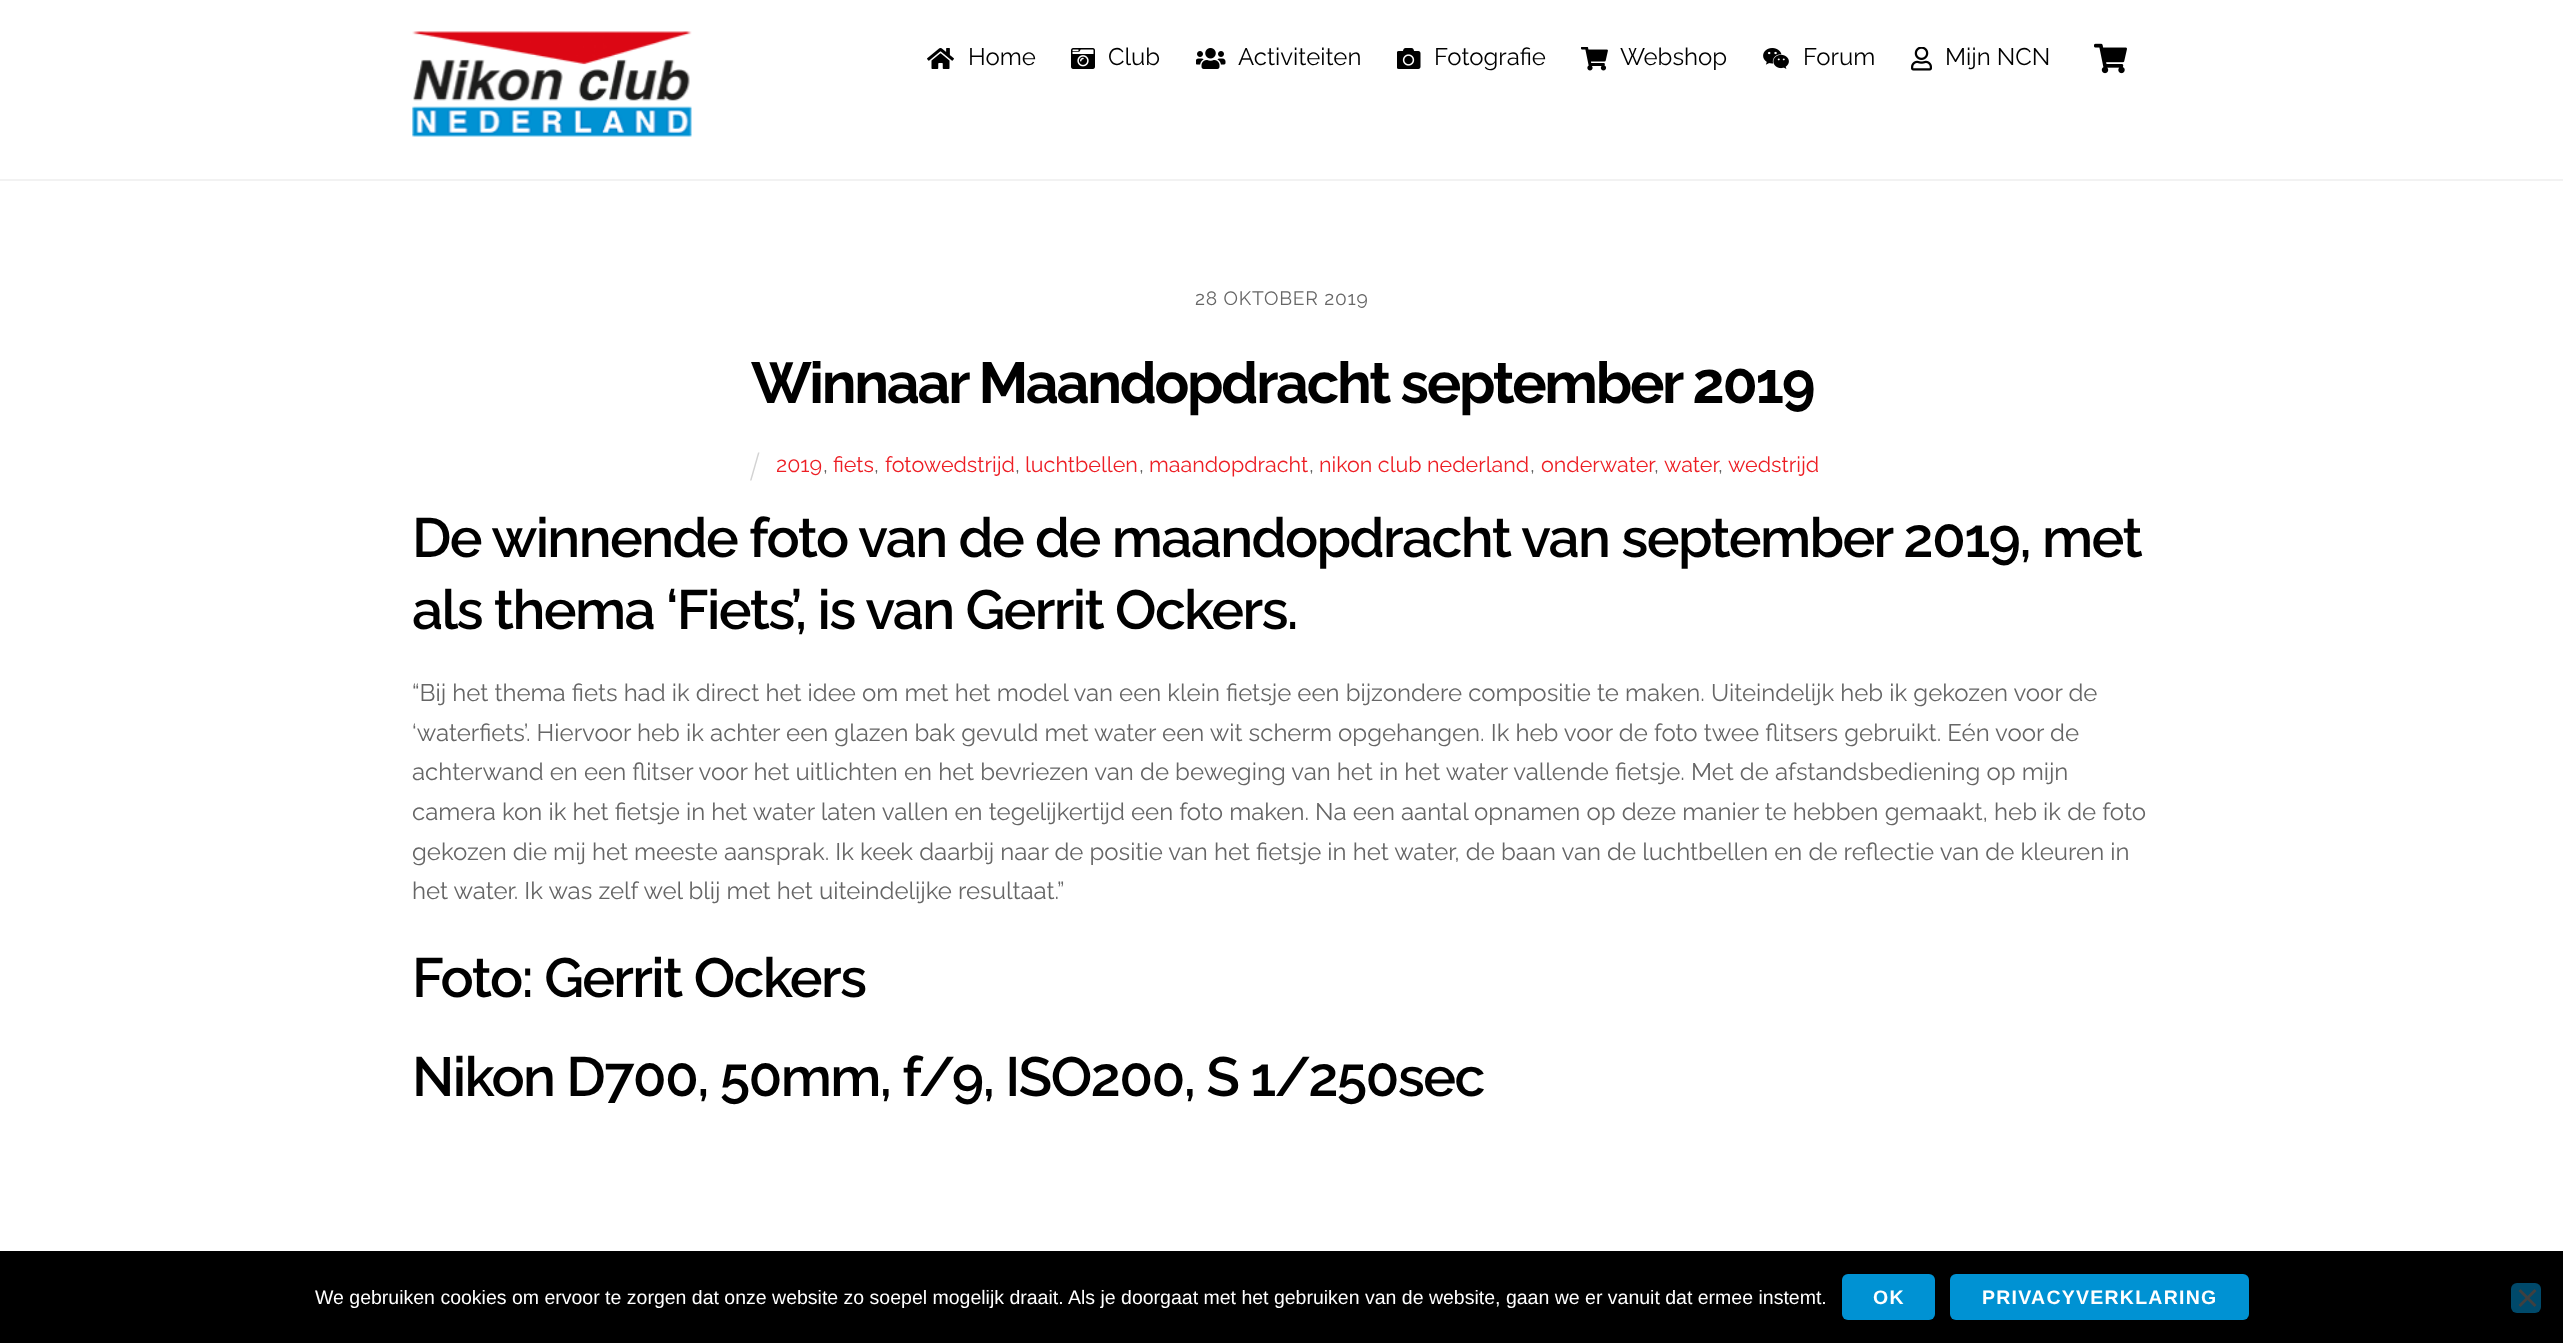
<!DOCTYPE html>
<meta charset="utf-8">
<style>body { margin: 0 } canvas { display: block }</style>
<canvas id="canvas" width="2563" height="1343"></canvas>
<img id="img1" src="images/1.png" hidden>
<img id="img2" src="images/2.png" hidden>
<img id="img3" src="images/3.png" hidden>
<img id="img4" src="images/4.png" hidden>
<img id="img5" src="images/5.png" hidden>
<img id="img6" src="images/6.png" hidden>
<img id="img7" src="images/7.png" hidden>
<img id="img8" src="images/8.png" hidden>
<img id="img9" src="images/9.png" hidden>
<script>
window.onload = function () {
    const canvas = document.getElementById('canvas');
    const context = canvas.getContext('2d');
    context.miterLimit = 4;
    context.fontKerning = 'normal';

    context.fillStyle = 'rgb(255, 255, 255)';
    context.fillRect(0, 0, 2563, 1343);
    context.fillStyle = 'rgb(242, 242, 242)';
    context.fillRect(0, 179, 2563, 2);
    context.drawImage(document.getElementById('img1'), 412, 31, 280, 106);
    context.drawImage(document.getElementById('img2'), 927, 48, 27, 21);
    context.drawImage(document.getElementById('img3'), 1071, 48, 24, 21);
    context.drawImage(document.getElementById('img4'), 1196, 48, 30, 21);
    context.drawImage(document.getElementById('img5'), 1397, 48, 24, 21);
    context.drawImage(document.getElementById('img6'), 1581, 47, 27, 24);
    context.drawImage(document.getElementById('img7'), 1763, 48, 26, 21);
    context.drawImage(document.getElementById('img8'), 1911, 47, 21, 24);
    context.drawImage(document.getElementById('img9'), 2094, 43, 33, 31);
    context.fillStyle = 'rgb(211, 211, 211)';
    context.beginPath();
    context.moveTo(758, 452.5);
    context.lineTo(759.5, 452.5);
    context.lineTo(751.5, 480.5);
    context.lineTo(750, 480.5);
    context.closePath();
    context.fill();
    context.fillStyle = 'rgb(0, 0, 0)';
    context.fillRect(0, 1251, 2563, 92);
    context.fillStyle = 'rgb(0, 146, 211)';
    context.beginPath();
    context.roundRect(1842, 1274, 93, 46, 6);
    context.fill();
    context.beginPath();
    context.roundRect(1950, 1274, 299, 46, 6);
    context.fill();
    context.fillStyle = 'rgb(0, 73, 106)';
    context.beginPath();
    context.roundRect(2511, 1283, 30, 30, 6);
    context.fill();
    context.fillStyle = 'rgb(64, 64, 64)';
    context.beginPath();
    context.moveTo(2534.5, 1289);
    context.lineTo(2536.5, 1291);
    context.lineTo(2520.5, 1307);
    context.lineTo(2518.5, 1305);
    context.closePath();
    context.fill();
    context.beginPath();
    context.moveTo(2518.5, 1291);
    context.lineTo(2520.5, 1289);
    context.lineTo(2536.5, 1305);
    context.lineTo(2534.5, 1307);
    context.closePath();
    context.fill();
    context.font = '100 24px Raleway';
    context.fillStyle = 'rgb(0, 0, 0)';
    context.fillText('Home', 968, 65);
    context.fillText('Club', 1108, 65);
    context.fillText('Activiteiten', 1238, 65);
    context.fillText('Fotografie', 1434, 65);
    context.fillText('Webshop', 1620, 65);
    context.fillText('Forum', 1803, 65);
    context.fillText('Mijn NCN', 1945, 65);
    context.letterSpacing = '0.75px';
    context.font = '100 19.25px Raleway';
    context.fillStyle = 'rgb(102, 102, 102)';
    context.fillText('28 OKTOBER 2019', 1195, 305);
    context.letterSpacing = '-2.3px';
    context.font = 'bold 57.6px Raleway';
    context.fillStyle = 'rgb(0, 0, 0)';
    context.fillText('Winnaar Maandopdracht september 2019', 751, 403);
    context.letterSpacing = '0px';
    context.font = '100 21.5px Raleway';
    context.fillStyle = 'rgb(237, 30, 36)';
    context.fillText('2019', 776, 472);
    context.fillStyle = 'rgb(102, 102, 102)';
    context.fillText(',', 823, 472);
    context.fillStyle = 'rgb(237, 30, 36)';
    context.fillText('fiets', 833, 472);
    context.fillStyle = 'rgb(102, 102, 102)';
    context.fillText(',', 874, 472);
    context.fillStyle = 'rgb(237, 30, 36)';
    context.fillText('fotowedstrijd', 885, 472);
    context.fillStyle = 'rgb(102, 102, 102)';
    context.fillText(',', 1015, 472);
    context.fillStyle = 'rgb(237, 30, 36)';
    context.fillText('luchtbellen', 1025, 472);
    context.fillStyle = 'rgb(102, 102, 102)';
    context.fillText(',', 1139, 472);
    context.fillStyle = 'rgb(237, 30, 36)';
    context.fillText('maandopdracht', 1149, 472);
    context.fillStyle = 'rgb(102, 102, 102)';
    context.fillText(',', 1309, 472);
    context.fillStyle = 'rgb(237, 30, 36)';
    context.fillText('nikon club nederland', 1319, 472);
    context.fillStyle = 'rgb(102, 102, 102)';
    context.fillText(',', 1530, 472);
    context.fillStyle = 'rgb(237, 30, 36)';
    context.fillText('onderwater', 1541, 472);
    context.fillStyle = 'rgb(102, 102, 102)';
    context.fillText(',', 1654, 472);
    context.fillStyle = 'rgb(237, 30, 36)';
    context.fillText('water', 1664, 472);
    context.fillStyle = 'rgb(102, 102, 102)';
    context.fillText(',', 1718, 472);
    context.fillStyle = 'rgb(237, 30, 36)';
    context.fillText('wedstrijd', 1728, 472);
    context.letterSpacing = '-1.65px';
    context.font = '600 55.2px Raleway';
    context.fillStyle = 'rgb(0, 0, 0)';
    context.fillText('De winnende foto van de de maandopdracht van september 2019, met', 412, 557);
    context.fillText('als thema ‘Fiets’, is van Gerrit Ockers.', 412, 629);
    context.letterSpacing = '0px';
    context.font = '100 24px Raleway';
    context.fillStyle = 'rgb(102, 102, 102)';
    context.fillText('“Bij het thema fiets had ik direct het idee om met het model van een klein fietsje een bijzondere compositie te maken. Uiteindelijk heb ik gekozen voor de', 412, 701);
    context.fillText('‘waterfiets’. Hiervoor heb ik achter een glazen bak gevuld met water een wit scherm opgehangen. Ik heb voor de foto twee flitsers gebruikt. Eén voor de', 412, 741);
    context.fillText('achterwand en een flitser voor het uitlichten en het bevriezen van de beweging van het in het water vallende fietsje. Met de afstandsbediening op mijn', 412, 780);
    context.fillText('camera kon ik het fietsje in het water laten vallen en tegelijkertijd een foto maken. Na een aantal opnamen op deze manier te hebben gemaakt, heb ik de foto', 412, 820);
    context.fillText('gekozen die mij het meeste aansprak. Ik keek daarbij naar de positie van het fietsje in het water, de baan van de luchtbellen en de reflectie van de kleuren in', 412, 860);
    context.fillText('het water. Ik was zelf wel blij met het uiteindelijke resultaat.”', 412, 899);
    context.letterSpacing = '-1.65px';
    context.font = '600 55.2px Raleway';
    context.fillStyle = 'rgb(0, 0, 0)';
    context.fillText('Foto: Gerrit Ockers', 412, 997);
    context.fillText('Nikon D700, 50mm, f/9, ISO200, S 1/250sec', 412, 1096);
    context.letterSpacing = '0px';
    context.font = '19.5px Liberation Sans';
    context.fillStyle = 'rgb(255, 255, 255)';
    context.fillText('We gebruiken cookies om ervoor te zorgen dat onze website zo soepel mogelijk draait. Als je doorgaat met het gebruiken van de website, gaan we er vanuit dat ermee instemt.', 315, 1304);
    context.letterSpacing = '1.25px';
    context.font = 'bold 19.5px Liberation Sans';
    context.fillText('OK', 1873, 1304);
    context.fillText('PRIVACYVERKLARING', 1982, 1304);
};
</script>
